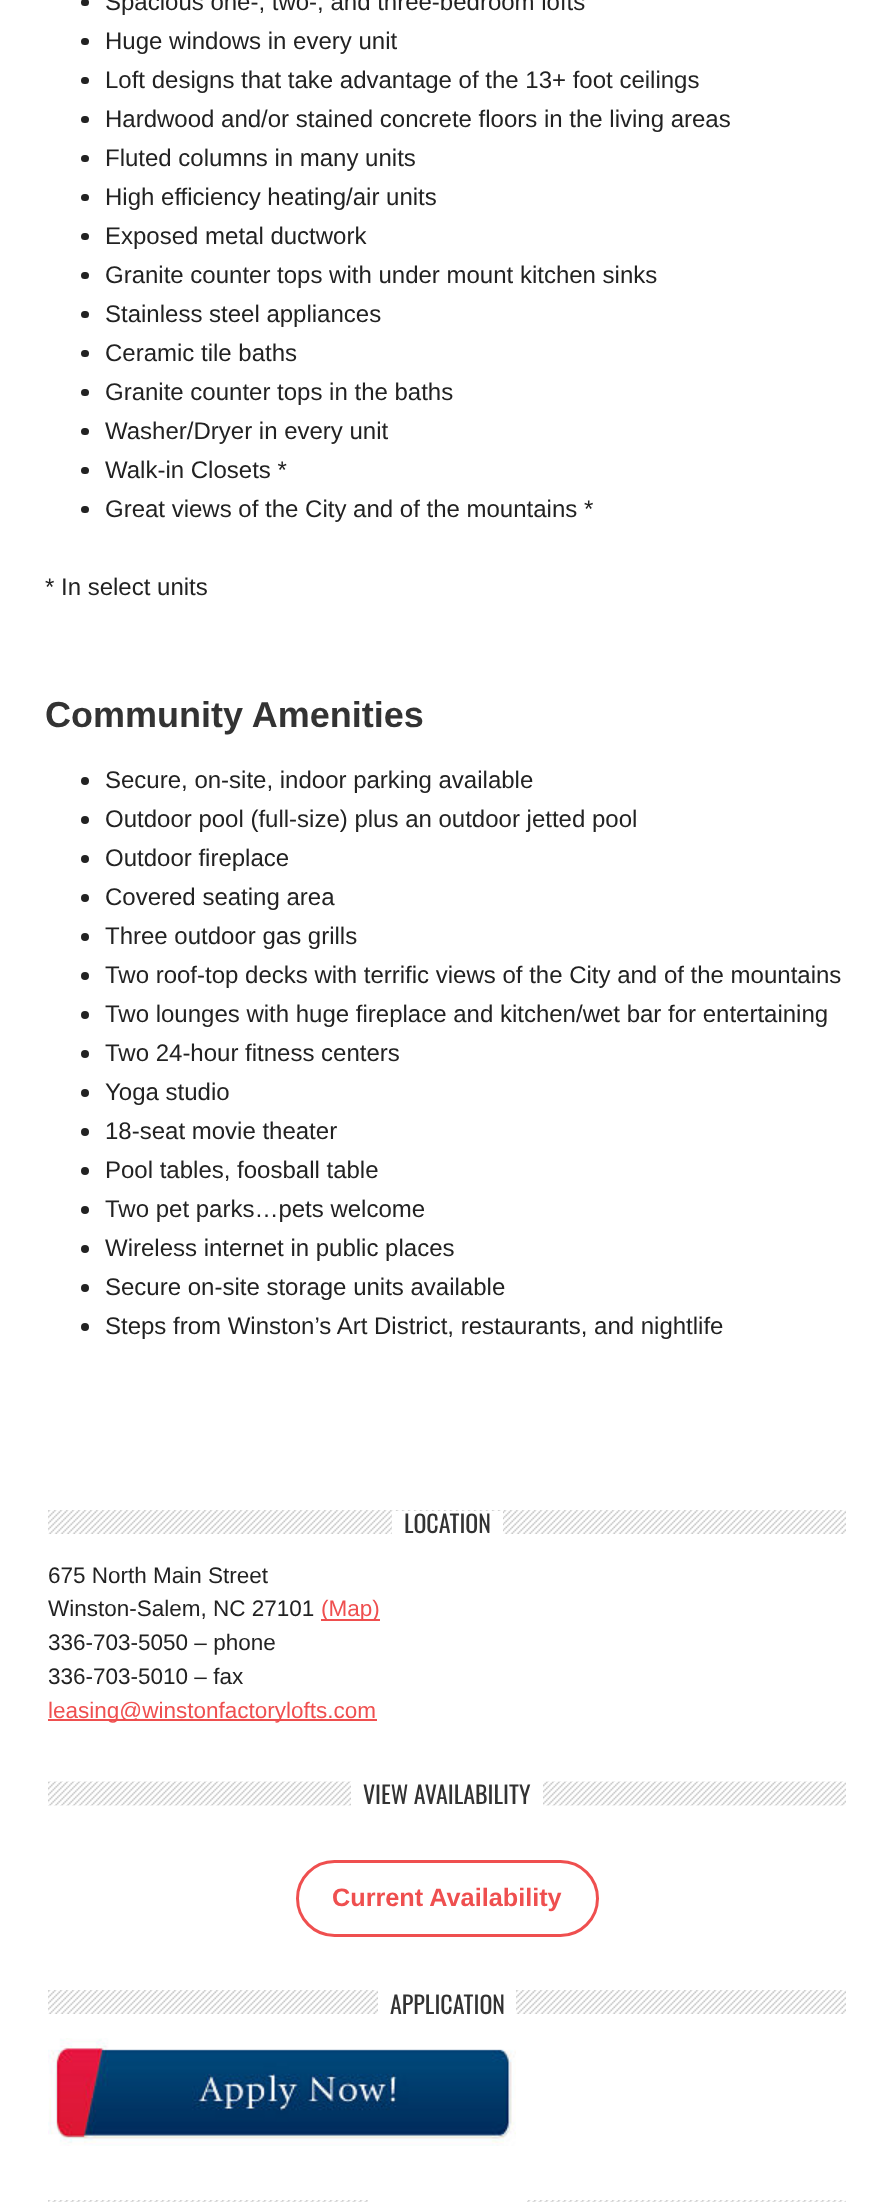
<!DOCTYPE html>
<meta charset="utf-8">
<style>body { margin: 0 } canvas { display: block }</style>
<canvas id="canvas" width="894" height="2202"></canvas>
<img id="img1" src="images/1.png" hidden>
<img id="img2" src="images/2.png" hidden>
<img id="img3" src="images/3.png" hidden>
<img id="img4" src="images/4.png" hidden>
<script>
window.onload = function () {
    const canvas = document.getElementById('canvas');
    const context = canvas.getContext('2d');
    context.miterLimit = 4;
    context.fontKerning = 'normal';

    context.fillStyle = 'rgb(255, 255, 255)';
    context.fillRect(0, 0, 894, 2202);
    context.fillStyle = 'rgb(34, 34, 34)';
    context.beginPath();
    context.roundRect(81, -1, 8, 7, 3.5);
    context.fill();
    context.beginPath();
    context.roundRect(81, 38, 8, 7, 3.5);
    context.fill();
    context.beginPath();
    context.roundRect(81, 77, 8, 7, 3.5);
    context.fill();
    context.beginPath();
    context.roundRect(81, 116, 8, 7, 3.5);
    context.fill();
    context.beginPath();
    context.roundRect(81, 155, 8, 7, 3.5);
    context.fill();
    context.beginPath();
    context.roundRect(81, 194, 8, 7, 3.5);
    context.fill();
    context.beginPath();
    context.roundRect(81, 233, 8, 7, 3.5);
    context.fill();
    context.beginPath();
    context.roundRect(81, 272, 8, 7, 3.5);
    context.fill();
    context.beginPath();
    context.roundRect(81, 311, 8, 7, 3.5);
    context.fill();
    context.beginPath();
    context.roundRect(81, 350, 8, 7, 3.5);
    context.fill();
    context.beginPath();
    context.roundRect(81, 389, 8, 7, 3.5);
    context.fill();
    context.beginPath();
    context.roundRect(81, 428, 8, 7, 3.5);
    context.fill();
    context.beginPath();
    context.roundRect(81, 467, 8, 7, 3.5);
    context.fill();
    context.beginPath();
    context.roundRect(81, 506, 8, 7, 3.5);
    context.fill();
    context.beginPath();
    context.arc(85, 781, 4, 0, 2 * Math.PI);
    context.fill();
    context.beginPath();
    context.arc(85, 820, 4, 0, 2 * Math.PI);
    context.fill();
    context.beginPath();
    context.arc(85, 859, 4, 0, 2 * Math.PI);
    context.fill();
    context.beginPath();
    context.arc(85, 898, 4, 0, 2 * Math.PI);
    context.fill();
    context.beginPath();
    context.arc(85, 937, 4, 0, 2 * Math.PI);
    context.fill();
    context.beginPath();
    context.arc(85, 976, 4, 0, 2 * Math.PI);
    context.fill();
    context.beginPath();
    context.arc(85, 1015, 4, 0, 2 * Math.PI);
    context.fill();
    context.beginPath();
    context.arc(85, 1054, 4, 0, 2 * Math.PI);
    context.fill();
    context.beginPath();
    context.arc(85, 1093, 4, 0, 2 * Math.PI);
    context.fill();
    context.beginPath();
    context.arc(85, 1132, 4, 0, 2 * Math.PI);
    context.fill();
    context.beginPath();
    context.arc(85, 1171, 4, 0, 2 * Math.PI);
    context.fill();
    context.beginPath();
    context.arc(85, 1210, 4, 0, 2 * Math.PI);
    context.fill();
    context.beginPath();
    context.arc(85, 1249, 4, 0, 2 * Math.PI);
    context.fill();
    context.beginPath();
    context.arc(85, 1288, 4, 0, 2 * Math.PI);
    context.fill();
    context.beginPath();
    context.arc(85, 1327, 4, 0, 2 * Math.PI);
    context.fill();
    context.drawImage(document.getElementById('img1'), 48, 1510, 798, 24);
    context.fillStyle = 'rgb(255, 255, 255)';
    context.fillRect(392, 1511, 111, 23);
    context.fillStyle = 'rgb(239, 79, 79)';
    context.fillRect(321, 1619, 59, 2);
    context.fillRect(48, 1719, 329, 2);
    context.drawImage(document.getElementById('img2'), 48, 1781, 798, 25);
    context.fillStyle = 'rgb(255, 255, 255)';
    context.fillRect(351, 1781, 192, 25);
    context.beginPath();
    context.roundRect(297.5, 1861.5, 300, 74, 37);
    context.strokeStyle = 'rgb(239, 79, 79)';
    context.lineWidth = 3;
    context.stroke();
    context.drawImage(document.getElementById('img1'), 48, 1990, 798, 24);
    context.fillRect(378, 1990, 138, 24);
    context.drawImage(document.getElementById('img3'), 48, 2038, 468, 108);
    context.drawImage(document.getElementById('img4'), 48, 2200, 798, 2);
    context.fillRect(368, 2200, 159, 2);
    context.font = '24px Liberation Sans';
    context.fillStyle = 'rgb(34, 34, 34)';
    context.fillText('Spacious one-, two-, and three-bedroom lofts', 105, 10);
    context.fillText('Huge windows in every unit', 105, 49);
    context.fillText('Loft designs that take advantage of the 13+ foot ceilings', 105, 88);
    context.fillText('Hardwood and/or stained concrete floors in the living areas', 105, 127);
    context.fillText('Fluted columns in many units', 105, 166);
    context.fillText('High efficiency heating/air units', 105, 205);
    context.fillText('Exposed metal ductwork', 105, 244);
    context.fillText('Granite counter tops with under mount kitchen sinks', 105, 283);
    context.fillText('Stainless steel appliances', 105, 322);
    context.fillText('Ceramic tile baths', 105, 361);
    context.fillText('Granite counter tops in the baths', 105, 400);
    context.fillText('Washer/Dryer in every unit', 105, 439);
    context.fillText('Walk-in Closets *', 105, 478);
    context.fillText('Great views of the City and of the mountains *', 105, 517);
    context.fillText('* In select units', 45, 595);
    context.font = 'bold 36px Liberation Sans';
    context.fillStyle = 'rgb(51, 51, 51)';
    context.fillText('Community Amenities', 45, 727);
    context.font = '24px Liberation Sans';
    context.fillStyle = 'rgb(34, 34, 34)';
    context.fillText('Secure, on-site, indoor parking available', 105, 788);
    context.fillText('Outdoor pool (full-size) plus an outdoor jetted pool', 105, 827);
    context.fillText('Outdoor fireplace', 105, 866);
    context.fillText('Covered seating area', 105, 905);
    context.fillText('Three outdoor gas grills', 105, 944);
    context.fillText('Two roof-top decks with terrific views of the City and of the mountains', 105, 983);
    context.fillText('Two lounges with huge fireplace and kitchen/wet bar for entertaining', 105, 1022);
    context.fillText('Two 24-hour fitness centers', 105, 1061);
    context.fillText('Yoga studio', 105, 1100);
    context.fillText('18-seat movie theater', 105, 1139);
    context.fillText('Pool tables, foosball table', 105, 1178);
    context.fillText('Two pet parks…pets welcome', 105, 1217);
    context.fillText('Wireless internet in public places', 105, 1256);
    context.fillText('Secure on-site storage units available', 105, 1295);
    context.fillText('Steps from Winston’s Art District, restaurants, and nightlife', 105, 1334);
    context.font = '24px Oswald';
    context.fillStyle = 'rgb(51, 51, 51)';
    context.fillText('LOCATION', 404, 1533);
    context.font = '22.5px Liberation Sans';
    context.fillStyle = 'rgb(34, 34, 34)';
    context.fillText('675 North Main Street', 48, 1583);
    context.fillText('Winston-Salem, NC 27101', 48, 1616);
    context.fillStyle = 'rgb(239, 79, 79)';
    context.fillText('(Map)', 321, 1616);
    context.fillStyle = 'rgb(34, 34, 34)';
    context.fillText('336-703-5050 – phone', 48, 1650);
    context.fillText('336-703-5010 – fax', 48, 1684);
    context.fillStyle = 'rgb(239, 79, 79)';
    context.fillText('leasing@winstonfactorylofts.com', 48, 1718);
    context.font = '24px Oswald';
    context.fillStyle = 'rgb(51, 51, 51)';
    context.fillText('VIEW AVAILABILITY', 363, 1804);
    context.font = 'bold 25.25px Liberation Sans';
    context.fillStyle = 'rgb(239, 79, 79)';
    context.fillText('Current Availability', 332, 1906);
    context.font = '24px Oswald';
    context.fillStyle = 'rgb(51, 51, 51)';
    context.fillText('APPLICATION', 390, 2014);
};
</script>
